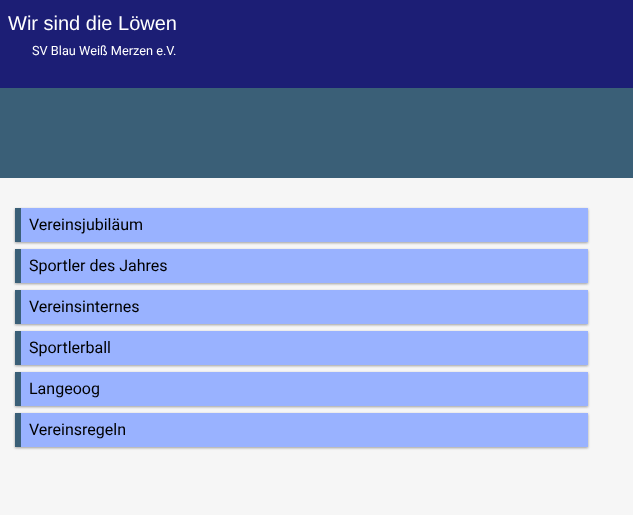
<!DOCTYPE html>
<meta charset="utf-8">
<style>body { margin: 0 } canvas { display: block }</style>
<canvas id="canvas" width="633" height="515"></canvas>
<script>
window.onload = function () {
    const canvas = document.getElementById('canvas');
    const context = canvas.getContext('2d');
    context.miterLimit = 4;
    context.fontKerning = 'normal';

    context.fillStyle = 'rgb(246, 246, 246)';
    context.fillRect(0, 0, 633, 515);
    context.fillStyle = 'rgb(28, 30, 117)';
    context.fillRect(0, 0, 633, 88);
    context.fillStyle = 'rgb(58, 95, 119)';
    context.fillRect(0, 88, 633, 90);
    context.fillStyle = 'rgba(0, 0, 0, 0.24)';
    context.filter = 'blur(1px)';
    context.beginPath();
    context.rect(15, 209, 573, 34);
    context.fill();
    context.filter = 'none';
    context.fillStyle = 'rgba(0, 0, 0, 0.12)';
    context.filter = 'blur(1.5px)';
    context.beginPath();
    context.rect(15, 209, 573, 34);
    context.fill();
    context.filter = 'none';
    context.fillStyle = 'rgb(153, 178, 255)';
    context.fillRect(21, 208, 567, 34);
    context.fillStyle = 'rgb(58, 95, 119)';
    context.fillRect(15, 208, 6, 34);
    context.fillStyle = 'rgba(0, 0, 0, 0.24)';
    context.filter = 'blur(1px)';
    context.beginPath();
    context.rect(15, 250, 573, 34);
    context.fill();
    context.filter = 'none';
    context.fillStyle = 'rgba(0, 0, 0, 0.12)';
    context.filter = 'blur(1.5px)';
    context.beginPath();
    context.rect(15, 250, 573, 34);
    context.fill();
    context.filter = 'none';
    context.fillStyle = 'rgb(153, 178, 255)';
    context.fillRect(21, 249, 567, 34);
    context.fillStyle = 'rgb(58, 95, 119)';
    context.fillRect(15, 249, 6, 34);
    context.fillStyle = 'rgba(0, 0, 0, 0.24)';
    context.filter = 'blur(1px)';
    context.beginPath();
    context.rect(15, 291, 573, 34);
    context.fill();
    context.filter = 'none';
    context.fillStyle = 'rgba(0, 0, 0, 0.12)';
    context.filter = 'blur(1.5px)';
    context.beginPath();
    context.rect(15, 291, 573, 34);
    context.fill();
    context.filter = 'none';
    context.fillStyle = 'rgb(153, 178, 255)';
    context.fillRect(21, 290, 567, 34);
    context.fillStyle = 'rgb(58, 95, 119)';
    context.fillRect(15, 290, 6, 34);
    context.fillStyle = 'rgba(0, 0, 0, 0.24)';
    context.filter = 'blur(1px)';
    context.beginPath();
    context.rect(15, 332, 573, 34);
    context.fill();
    context.filter = 'none';
    context.fillStyle = 'rgba(0, 0, 0, 0.12)';
    context.filter = 'blur(1.5px)';
    context.beginPath();
    context.rect(15, 332, 573, 34);
    context.fill();
    context.filter = 'none';
    context.fillStyle = 'rgb(153, 178, 255)';
    context.fillRect(21, 331, 567, 34);
    context.fillStyle = 'rgb(58, 95, 119)';
    context.fillRect(15, 331, 6, 34);
    context.fillStyle = 'rgba(0, 0, 0, 0.24)';
    context.filter = 'blur(1px)';
    context.beginPath();
    context.rect(15, 373, 573, 34);
    context.fill();
    context.filter = 'none';
    context.fillStyle = 'rgba(0, 0, 0, 0.12)';
    context.filter = 'blur(1.5px)';
    context.beginPath();
    context.rect(15, 373, 573, 34);
    context.fill();
    context.filter = 'none';
    context.fillStyle = 'rgb(153, 178, 255)';
    context.fillRect(21, 372, 567, 34);
    context.fillStyle = 'rgb(58, 95, 119)';
    context.fillRect(15, 372, 6, 34);
    context.fillStyle = 'rgba(0, 0, 0, 0.24)';
    context.filter = 'blur(1px)';
    context.beginPath();
    context.rect(15, 414, 573, 34);
    context.fill();
    context.filter = 'none';
    context.fillStyle = 'rgba(0, 0, 0, 0.12)';
    context.filter = 'blur(1.5px)';
    context.beginPath();
    context.rect(15, 414, 573, 34);
    context.fill();
    context.filter = 'none';
    context.fillStyle = 'rgb(153, 178, 255)';
    context.fillRect(21, 413, 567, 34);
    context.fillStyle = 'rgb(58, 95, 119)';
    context.fillRect(15, 413, 6, 34);
    context.font = '20px Liberation Sans';
    context.fillStyle = 'rgb(255, 255, 255)';
    context.fillText('Wir sind die Löwen', 8, 30);
    context.font = '12.75px Roboto';
    context.fillText('SV Blau Weiß Merzen e.V.', 32, 55);
    context.font = '16px Roboto';
    context.fillStyle = 'rgb(0, 0, 0)';
    context.fillText('Vereinsjubiläum', 29, 230);
    context.fillText('Sportler des Jahres', 29, 271);
    context.fillText('Vereinsinternes', 29, 312);
    context.fillText('Sportlerball', 29, 353);
    context.fillText('Langeoog', 29, 394);
    context.fillText('Vereinsregeln', 29, 435);
};
</script>
